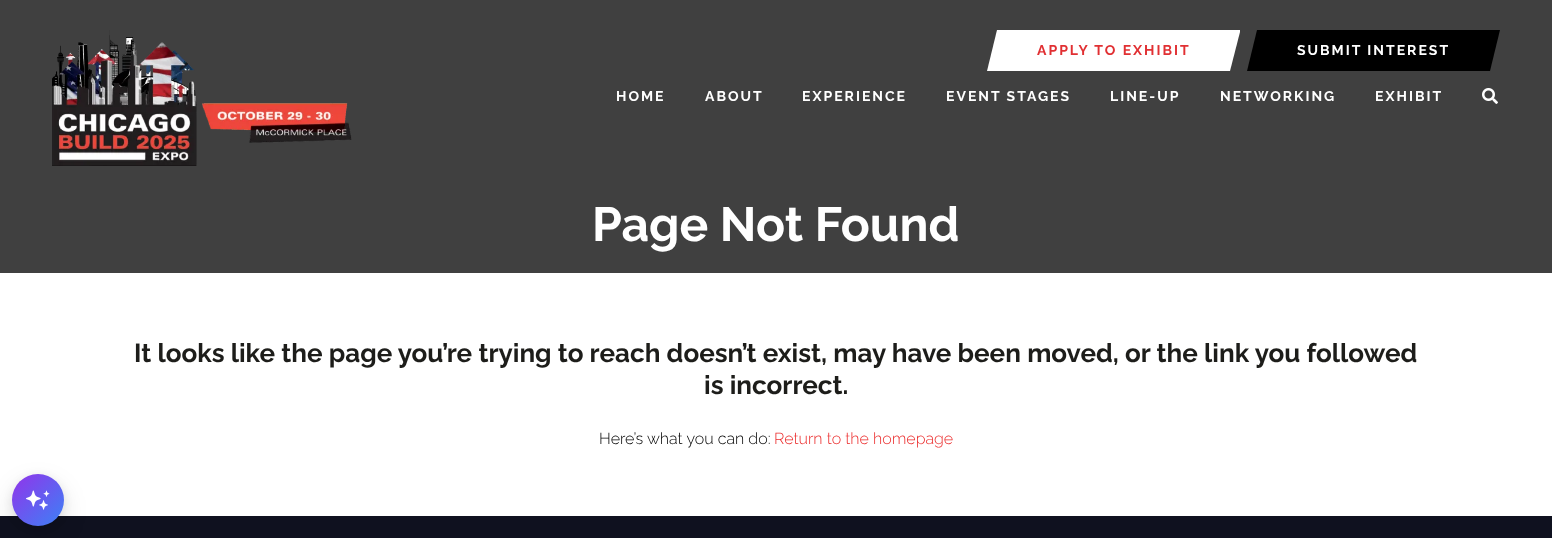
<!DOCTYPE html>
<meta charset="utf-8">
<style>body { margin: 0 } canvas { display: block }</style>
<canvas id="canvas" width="1552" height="538"></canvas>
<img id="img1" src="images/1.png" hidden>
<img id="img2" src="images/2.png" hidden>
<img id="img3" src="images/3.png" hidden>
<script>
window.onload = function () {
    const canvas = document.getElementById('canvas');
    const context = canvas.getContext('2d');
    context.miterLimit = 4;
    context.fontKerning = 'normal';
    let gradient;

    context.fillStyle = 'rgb(255, 255, 255)';
    context.fillRect(0, 0, 1552, 538);
    context.fillStyle = 'rgb(64, 64, 64)';
    context.fillRect(0, 0, 1552, 273);
    context.drawImage(document.getElementById('img1'), 52, 30, 300, 136);
    context.fillStyle = 'rgb(255, 255, 255)';
    context.beginPath();
    context.moveTo(997, 30);
    context.lineTo(987, 71);
    context.lineTo(1230, 71);
    context.lineTo(1240, 32);
    context.lineTo(1240, 30);
    context.closePath();
    context.fill();
    context.fillStyle = 'rgb(0, 0, 0)';
    context.beginPath();
    context.moveTo(1257, 30);
    context.lineTo(1247, 71);
    context.lineTo(1490, 71);
    context.lineTo(1500, 30);
    context.closePath();
    context.fill();
    context.drawImage(document.getElementById('img2'), 1482, 88, 16, 16);
    context.fillStyle = 'rgb(15, 17, 31)';
    context.fillRect(0, 516, 1552, 22);
    context.fillStyle = 'rgba(0, 0, 0, 0.08)';
    context.filter = 'blur(4px)';
    context.beginPath();
    context.roundRect(12, 476, 52, 52, 26);
    context.fill();
    context.filter = 'none';
    context.fillStyle = 'rgba(0, 0, 0, 0.12)';
    context.filter = 'blur(12px)';
    context.beginPath();
    context.roundRect(12, 484, 52, 52, 26);
    context.fill();
    context.filter = 'none';
    gradient = context.createLinearGradient(12, 474, 64, 526);
    gradient.addColorStop(0, 'rgb(147, 51, 234)');
    gradient.addColorStop(1, 'rgb(59, 130, 246)');
    context.fillStyle = gradient;
    context.beginPath();
    context.arc(38, 500, 26, 0, 2 * Math.PI);
    context.fill();
    context.drawImage(document.getElementById('img3'), 26, 490, 24, 20);
    context.letterSpacing = '2px';
    context.font = 'bold 14px Raleway';
    context.fillStyle = 'rgb(225, 48, 51)';
    context.fillText('APPLY TO EXHIBIT', 1037, 55);
    context.fillStyle = 'rgb(255, 255, 255)';
    context.fillText('SUBMIT INTEREST', 1297, 55);
    context.fillText('HOME', 616, 101);
    context.fillText('ABOUT', 705, 101);
    context.fillText('EXPERIENCE', 802, 101);
    context.fillText('EVENT STAGES', 946, 101);
    context.fillText('LINE-UP', 1110, 101);
    context.fillText('NETWORKING', 1220, 101);
    context.fillText('EXHIBIT', 1375, 101);
    context.letterSpacing = '0px';
    context.font = 'bold 48px Raleway';
    context.fillText('Page Not Found', 592, 241);
    context.font = 'bold 26px Raleway';
    context.fillStyle = 'rgb(29, 29, 26)';
    context.fillText('It looks like the page you’re trying to reach doesn’t exist, may have been moved, or the link you followed', 134, 362);
    context.fillText('is incorrect.', 704, 394);
    context.font = '300 16px Raleway';
    context.fillStyle = 'rgb(0, 0, 0)';
    context.fillText('Here’s what you can do:', 599, 444);
    context.fillStyle = 'rgb(235, 43, 43)';
    context.fillText('Return to the homepage', 774, 444);
};
</script>
